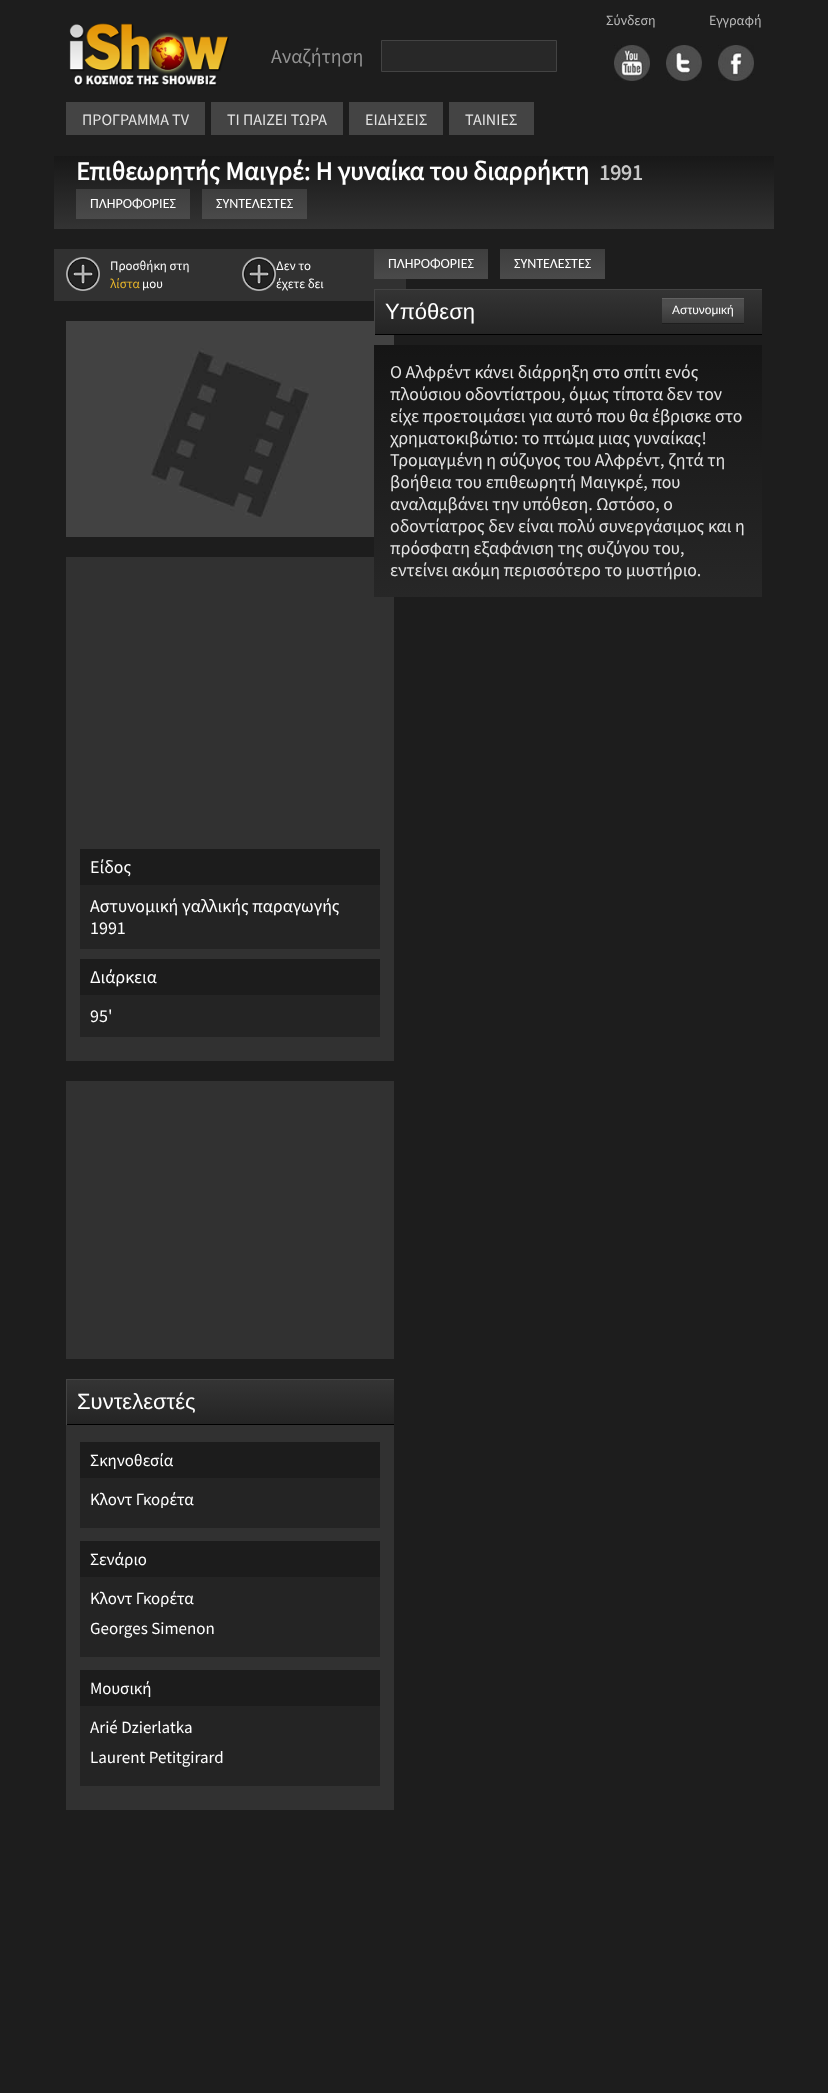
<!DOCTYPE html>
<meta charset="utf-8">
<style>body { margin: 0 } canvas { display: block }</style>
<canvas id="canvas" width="828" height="2093"></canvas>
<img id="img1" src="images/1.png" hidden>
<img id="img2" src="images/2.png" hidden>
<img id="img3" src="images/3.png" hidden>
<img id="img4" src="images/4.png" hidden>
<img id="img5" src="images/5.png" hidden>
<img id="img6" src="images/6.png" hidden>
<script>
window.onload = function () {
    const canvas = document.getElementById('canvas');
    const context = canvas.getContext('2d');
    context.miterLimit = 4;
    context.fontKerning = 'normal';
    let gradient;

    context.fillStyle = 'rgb(29, 29, 29)';
    context.fillRect(0, 0, 828, 2093);
    context.drawImage(document.getElementById('img1'), 614, 45, 36, 36);
    context.drawImage(document.getElementById('img2'), 666, 45, 36, 36);
    context.drawImage(document.getElementById('img3'), 718, 45, 36, 36);
    context.drawImage(document.getElementById('img4'), 69, 23, 160, 63);
    context.fillStyle = 'rgb(40, 40, 40)';
    context.beginPath();
    context.rect(381.5, 40.5, 175, 31);
    context.fill();
    context.strokeStyle = 'rgb(67, 67, 67)';
    context.stroke();
    context.fillStyle = 'rgb(68, 68, 68)';
    context.fillRect(66, 102, 139, 33);
    context.fillRect(211, 102, 132, 33);
    context.fillRect(349, 102, 94, 33);
    context.fillRect(449, 102, 85, 33);
    gradient = context.createLinearGradient(414, 156, 414, 229);
    gradient.addColorStop(0, 'rgb(24, 24, 24)');
    gradient.addColorStop(1, 'rgb(51, 51, 51)');
    context.fillStyle = gradient;
    context.fillRect(54, 156, 720, 73);
    gradient = context.createLinearGradient(133, 189, 133, 219);
    gradient.addColorStop(0, 'rgb(62, 62, 62)');
    gradient.addColorStop(1, 'rgb(74, 74, 74)');
    context.fillStyle = gradient;
    context.fillRect(76, 189, 114, 30);
    gradient = context.createLinearGradient(255, 189, 255, 219);
    gradient.addColorStop(0, 'rgb(62, 62, 62)');
    gradient.addColorStop(1, 'rgb(74, 74, 74)');
    context.fillStyle = gradient;
    context.fillRect(202, 189, 105, 30);
    context.fillStyle = 'rgb(49, 49, 49)';
    context.fillRect(54, 249, 352, 52);
    context.drawImage(document.getElementById('img5'), 66, 257, 34, 34);
    context.drawImage(document.getElementById('img5'), 242, 257, 34, 34);
    context.drawImage(document.getElementById('img6'), 66, 321, 328, 216);
    context.fillRect(66, 557, 328, 504);
    context.fillStyle = 'rgb(28, 28, 28)';
    context.fillRect(80, 849, 300, 36);
    context.fillStyle = 'rgb(36, 36, 36)';
    context.fillRect(80, 885, 300, 64);
    context.fillStyle = 'rgb(28, 28, 28)';
    context.fillRect(80, 959, 300, 36);
    context.fillStyle = 'rgb(36, 36, 36)';
    context.fillRect(80, 995, 300, 42);
    context.fillStyle = 'rgb(49, 49, 49)';
    context.fillRect(66, 1081, 328, 278);
    gradient = context.createLinearGradient(231, 1380, 231, 1424);
    gradient.addColorStop(0, 'rgb(52, 52, 52)');
    gradient.addColorStop(1, 'rgb(36, 36, 36)');
    context.fillStyle = gradient;
    context.fillRect(67, 1380, 327, 44);
    context.fillStyle = 'rgb(68, 68, 68)';
    context.fillRect(66, 1379, 328, 1);
    context.fillStyle = 'rgb(0, 0, 0)';
    context.fillRect(66, 1424, 328, 1);
    context.fillStyle = 'rgb(68, 68, 68)';
    context.fillRect(66, 1379, 1, 46);
    context.fillStyle = 'rgb(49, 49, 49)';
    context.fillRect(66, 1425, 328, 385);
    context.fillStyle = 'rgb(28, 28, 28)';
    context.fillRect(80, 1442, 300, 36);
    context.fillStyle = 'rgb(36, 36, 36)';
    context.fillRect(80, 1478, 300, 50);
    context.fillStyle = 'rgb(28, 28, 28)';
    context.fillRect(80, 1541, 300, 36);
    context.fillStyle = 'rgb(36, 36, 36)';
    context.fillRect(80, 1577, 300, 80);
    context.fillStyle = 'rgb(28, 28, 28)';
    context.fillRect(80, 1670, 300, 36);
    context.fillStyle = 'rgb(36, 36, 36)';
    context.fillRect(80, 1706, 300, 80);
    gradient = context.createLinearGradient(431, 249, 431, 279);
    gradient.addColorStop(0, 'rgb(62, 62, 62)');
    gradient.addColorStop(1, 'rgb(74, 74, 74)');
    context.fillStyle = gradient;
    context.fillRect(374, 249, 114, 30);
    gradient = context.createLinearGradient(553, 249, 553, 279);
    gradient.addColorStop(0, 'rgb(62, 62, 62)');
    gradient.addColorStop(1, 'rgb(74, 74, 74)');
    context.fillStyle = gradient;
    context.fillRect(500, 249, 105, 30);
    gradient = context.createLinearGradient(569, 290, 569, 334);
    gradient.addColorStop(0, 'rgb(52, 52, 52)');
    gradient.addColorStop(1, 'rgb(36, 36, 36)');
    context.fillStyle = gradient;
    context.fillRect(375, 290, 387, 44);
    context.fillStyle = 'rgb(68, 68, 68)';
    context.fillRect(374, 289, 388, 1);
    context.fillStyle = 'rgb(0, 0, 0)';
    context.fillRect(374, 334, 388, 1);
    context.fillStyle = 'rgb(68, 68, 68)';
    context.fillRect(374, 289, 1, 46);
    gradient = context.createLinearGradient(703, 299, 703, 323);
    gradient.addColorStop(0.26, 'rgb(78, 78, 78)');
    gradient.addColorStop(1, 'rgb(56, 56, 56)');
    context.fillStyle = gradient;
    context.fillRect(662, 299, 82, 24);
    context.fillStyle = 'rgb(97, 97, 97)';
    context.fillRect(662, 298, 82, 1);
    context.fillStyle = 'rgb(30, 30, 30)';
    context.fillRect(662, 323, 82, 1);
    gradient = context.createLinearGradient(568, 345, 568, 597);
    gradient.addColorStop(0, 'rgb(21, 21, 21)');
    gradient.addColorStop(1, 'rgb(39, 39, 39)');
    context.fillStyle = gradient;
    context.fillRect(374, 345, 388, 252);
    context.font = '14px Source Sans Pro';
    context.fillStyle = 'rgb(185, 185, 185)';
    context.fillText('Σύνδεση', 606, 25);
    context.fillText('Εγγραφή', 709, 25);
    context.font = '20px Source Sans Pro';
    context.fillStyle = 'rgb(146, 146, 146)';
    context.fillText('Αναζήτηση', 271, 63);
    context.font = '16px Source Sans Pro';
    context.fillStyle = 'rgb(227, 227, 227)';
    context.fillText('ΠΡΟΓΡΑΜΜΑ TV', 82, 125);
    context.fillText('ΤΙ ΠΑΙΖΕΙ ΤΩΡΑ', 227, 125);
    context.fillText('ΕΙΔΗΣΕΙΣ', 365, 125);
    context.fillText('ΤΑΙΝΙΕΣ', 465, 125);
    context.font = 'bold 26px Source Sans Pro';
    context.fillStyle = 'rgb(255, 255, 255)';
    context.fillText('Επιθεωρητής Μαιγρέ: Η γυναίκα του διαρρήκτη', 76, 180);
    context.font = 'bold 22px Source Sans Pro';
    context.fillStyle = 'rgb(199, 199, 199)';
    context.fillText('1991', 599, 180);
    context.font = '14px Carlito';
    context.fillStyle = 'rgb(255, 255, 255)';
    context.fillText('ΠΛΗΡΟΦΟΡΙΕΣ', 90, 208);
    context.fillText('ΣΥΝΤΕΛΕΣΤΕΣ', 216, 208);
    context.font = '13px Source Sans Pro';
    context.fillText('Προσθήκη στη', 110, 270);
    context.fillStyle = 'rgb(234, 183, 42)';
    context.fillText('λίστα', 110, 288);
    context.fillStyle = 'rgb(255, 255, 255)';
    context.fillText('μου', 142, 288);
    context.fillText('Δεν το', 276, 270);
    context.fillText('έχετε δει', 276, 288);
    context.font = '18px Source Sans Pro';
    context.fillText('Είδος', 90, 873);
    context.fillText('Αστυνομική γαλλικής παραγωγής', 90, 912);
    context.fillText('1991', 90, 934);
    context.fillText('Διάρκεια', 90, 983);
    context.fillText('95\'', 90, 1022);
    context.font = '22px Liberation Sans';
    context.fillText('Συντελεστές', 77, 1409);
    context.font = '17px Source Sans Pro';
    context.fillText('Σκηνοθεσία', 90, 1466);
    context.fillText('Κλοντ Γκορέτα', 90, 1505);
    context.fillText('Σενάριο', 90, 1565);
    context.fillText('Κλοντ Γκορέτα', 90, 1604);
    context.fillText('Georges Simenon', 90, 1634);
    context.fillText('Μουσική', 90, 1694);
    context.fillText('Arié Dzierlatka', 90, 1733);
    context.fillText('Laurent Petitgirard', 90, 1763);
    context.font = '14px Carlito';
    context.fillText('ΠΛΗΡΟΦΟΡΙΕΣ', 388, 268);
    context.fillText('ΣΥΝΤΕΛΕΣΤΕΣ', 514, 268);
    context.font = '22px Liberation Sans';
    context.fillText('Υπόθεση', 385, 319);
    context.font = '12px Liberation Sans';
    context.fillText('Αστυνομική', 672, 314);
    context.font = '18px Source Sans Pro';
    context.fillStyle = 'rgb(227, 227, 227)';
    context.fillText('Ο Αλφρέντ κάνει διάρρηξη στο σπίτι ενός', 390, 378);
    context.fillText('πλούσιου οδοντίατρου, όμως τίποτα δεν τον', 390, 400);
    context.fillText('είχε προετοιμάσει για αυτό που θα έβρισκε στο', 390, 422);
    context.fillText('χρηματοκιβώτιο: το πτώμα μιας γυναίκας!', 390, 444);
    context.fillText('Τρομαγμένη η σύζυγος του Αλφρέντ, ζητά τη', 390, 466);
    context.fillText('βοήθεια του επιθεωρητή Μαιγκρέ, που', 390, 488);
    context.fillText('αναλαμβάνει την υπόθεση. Ωστόσο, ο', 390, 510);
    context.fillText('οδοντίατρος δεν είναι πολύ συνεργάσιμος και η', 390, 532);
    context.fillText('πρόσφατη εξαφάνιση της συζύγου του,', 390, 554);
    context.fillText('εντείνει ακόμη περισσότερο το μυστήριο.', 390, 576);
};
</script>
